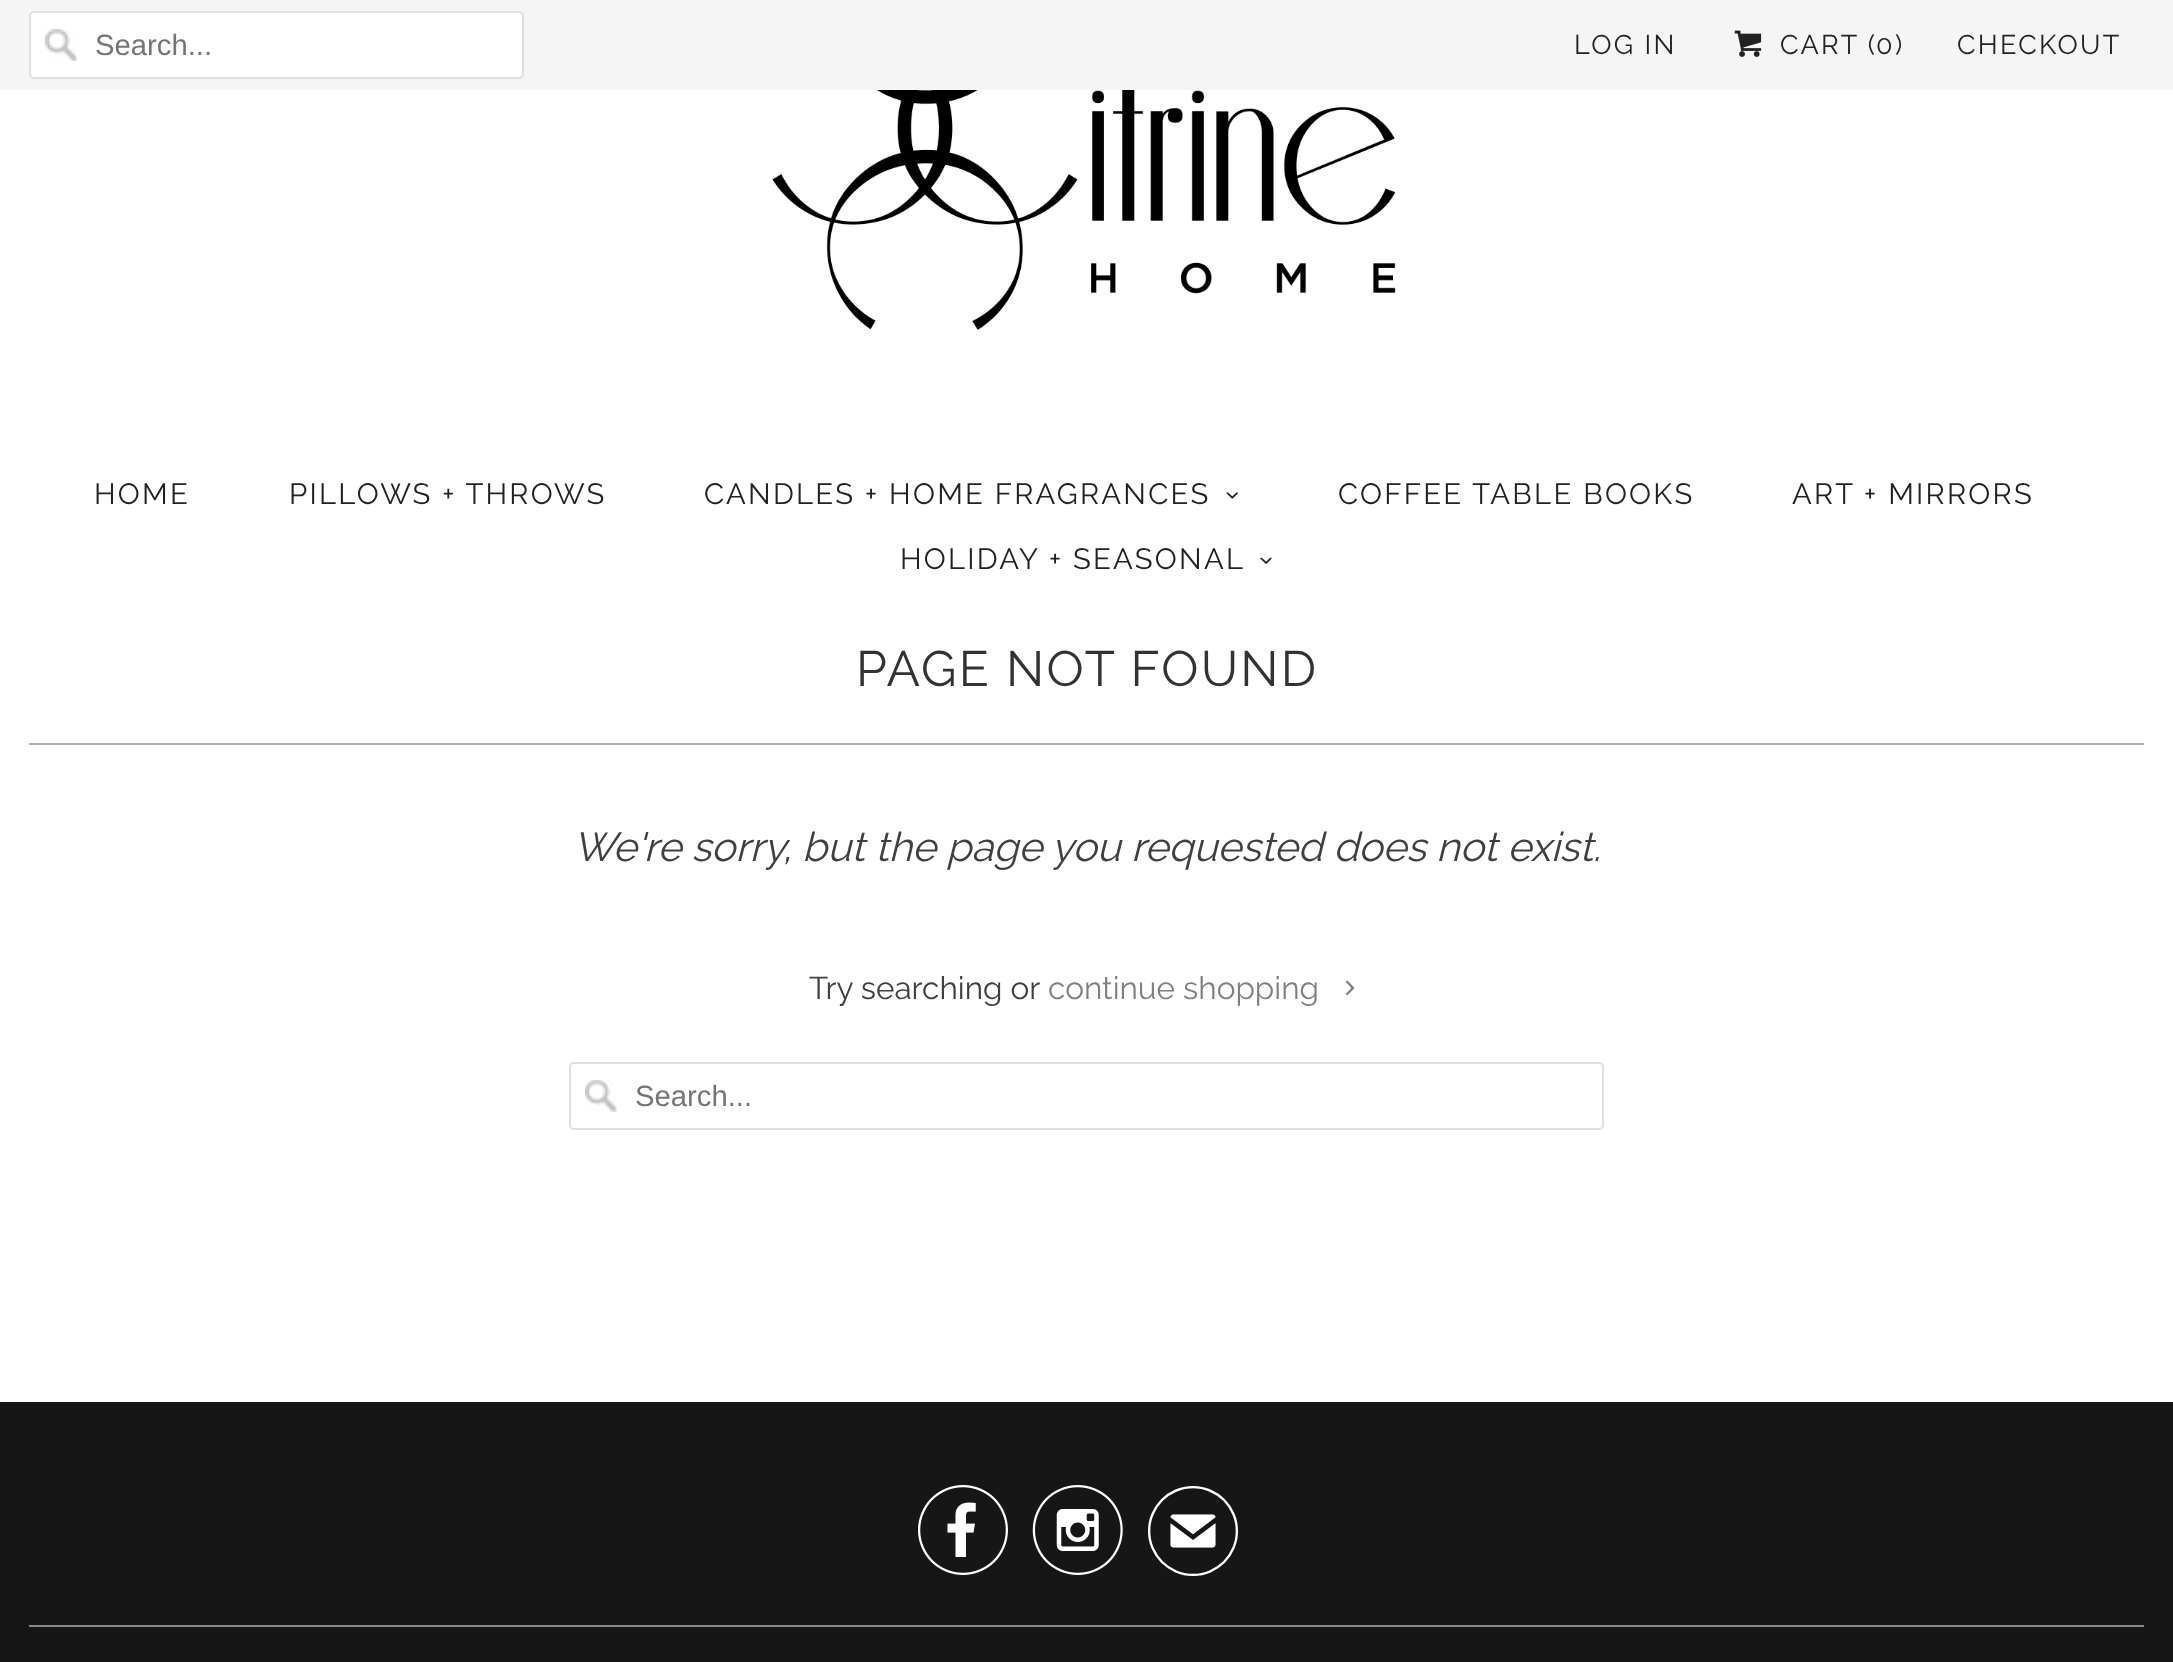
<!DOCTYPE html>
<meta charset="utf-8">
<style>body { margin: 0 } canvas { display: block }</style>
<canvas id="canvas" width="2173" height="1662"></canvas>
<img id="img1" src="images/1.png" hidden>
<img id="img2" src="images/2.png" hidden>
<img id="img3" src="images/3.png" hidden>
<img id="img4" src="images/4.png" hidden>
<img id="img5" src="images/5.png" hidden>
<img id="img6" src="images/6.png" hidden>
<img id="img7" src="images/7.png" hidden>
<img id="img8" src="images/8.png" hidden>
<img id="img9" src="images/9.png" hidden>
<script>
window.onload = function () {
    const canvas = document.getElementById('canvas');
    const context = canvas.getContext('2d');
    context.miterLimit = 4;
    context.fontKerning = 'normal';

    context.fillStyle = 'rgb(255, 255, 255)';
    context.fillRect(0, 0, 2173, 1662);
    context.fillStyle = 'rgb(245, 245, 245)';
    context.fillRect(0, 0, 2173, 90);
    context.fillStyle = 'rgb(255, 255, 255)';
    context.beginPath();
    context.roundRect(29, 11, 495, 68, 5);
    context.fill();
    context.drawImage(document.getElementById('img1'), 45, 29, 32, 32);
    context.beginPath();
    context.roundRect(30, 12, 493, 66, 4);
    context.strokeStyle = 'rgb(223, 223, 223)';
    context.lineWidth = 2;
    context.stroke();
    context.drawImage(document.getElementById('img2'), 1734, 30, 28, 27);
    context.drawImage(document.getElementById('img3'), 772, 90, 624, 240);
    context.drawImage(document.getElementById('img4'), 1226, 492, 12, 7);
    context.drawImage(document.getElementById('img5'), 1260, 557, 12, 7);
    context.fillStyle = 'rgb(174, 174, 176)';
    context.fillRect(29, 743, 2115, 2);
    context.drawImage(document.getElementById('img6'), 1346, 980, 9, 16);
    context.drawImage(document.getElementById('img7'), 585, 1080, 32, 32);
    context.beginPath();
    context.roundRect(570, 1063, 1033, 66, 4);
    context.stroke();
    context.fillStyle = 'rgb(22, 22, 22)';
    context.fillRect(0, 1402, 2173, 260);
    context.drawImage(document.getElementById('img8'), 918, 1485, 90, 90);
    context.drawImage(document.getElementById('img9'), 1032, 1485, 91, 90);
    context.fillStyle = 'rgb(136, 136, 136)';
    context.fillRect(29, 1625, 2115, 2);
    context.font = '29.25px Liberation Sans';
    context.fillStyle = 'rgb(117, 117, 117)';
    context.fillText('Search...', 95, 55);
    context.letterSpacing = '2.25px';
    context.font = '27px Raleway';
    context.fillStyle = 'rgb(34, 34, 34)';
    context.fillText('LOG IN', 1574, 54);
    context.fillText('CART (', 1780, 54);
    context.fillText('0', 1876, 54);
    context.fillText(')', 1895, 54);
    context.fillText('CHECKOUT', 1957, 54);
    context.font = '29.25px Raleway';
    context.fillText('HOME', 94, 504);
    context.fillText('PILLOWS + THROWS', 289, 504);
    context.fillText('CANDLES + HOME FRAGRANCES', 704, 504);
    context.fillText('COFFEE TABLE BOOKS', 1338, 504);
    context.fillText('ART + MIRRORS', 1792, 504);
    context.fillText('HOLIDAY + SEASONAL', 900, 569);
    context.font = '49.5px Raleway';
    context.fillStyle = 'rgb(51, 51, 51)';
    context.fillText('PAGE NOT FOUND', 856, 686);
    context.letterSpacing = '0px';
    context.font = 'italic 40.5px Raleway';
    context.fillStyle = 'rgb(64, 64, 64)';
    context.fillText('We\'re sorry, but the page you requested does not exist.', 573, 861);
    context.font = '31.5px Raleway';
    context.fillText('Try searching or', 809, 999);
    context.fillStyle = 'rgb(128, 128, 128)';
    context.fillText('continue shopping', 1048, 999);
    context.font = '29.25px Liberation Sans';
    context.fillStyle = 'rgb(117, 117, 117)';
    context.fillText('Search...', 635, 1106);
    context.font = '90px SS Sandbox';
    context.fillStyle = 'rgb(255, 255, 255)';
    context.fillText('✉', 1148, 1576);
};
</script>
